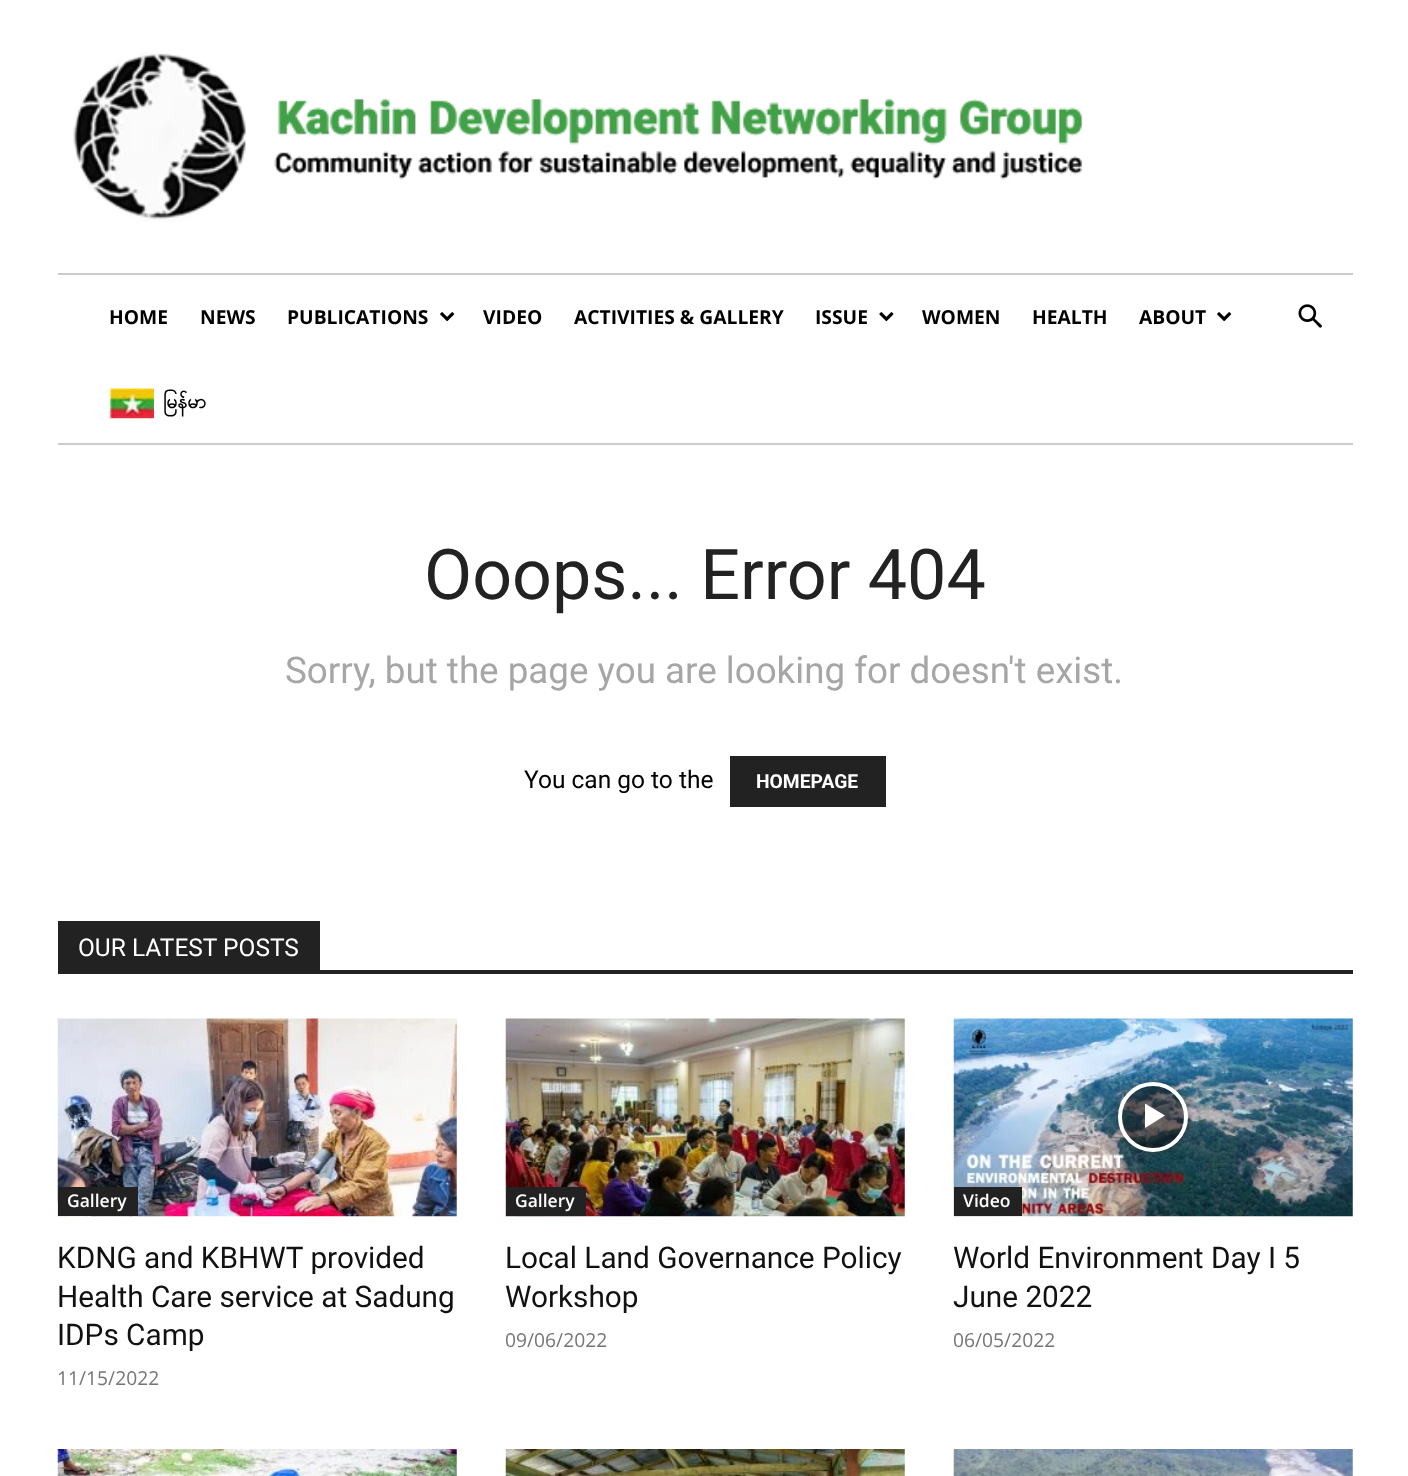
<!DOCTYPE html>
<meta charset="utf-8">
<style>body { margin: 0 } canvas { display: block }</style>
<canvas id="canvas" width="1408" height="1476"></canvas>
<img id="img1" src="images/1.png" hidden>
<img id="img2" src="images/2.png" hidden>
<img id="img3" src="images/3.png" hidden>
<img id="img4" src="images/4.png" hidden>
<img id="img5" src="images/5.png" hidden>
<img id="img6" src="images/6.png" hidden>
<img id="img7" src="images/7.png" hidden>
<img id="img8" src="images/8.png" hidden>
<img id="img9" src="images/9.png" hidden>
<img id="img10" src="images/10.png" hidden>
<img id="img11" src="images/11.png" hidden>
<script>
window.onload = function () {
    const canvas = document.getElementById('canvas');
    const context = canvas.getContext('2d');
    context.miterLimit = 4;
    context.fontKerning = 'normal';

    context.fillStyle = 'rgb(255, 255, 255)';
    context.fillRect(0, 0, 1408, 1476);
    context.drawImage(document.getElementById('img1'), 73, 52, 1010, 170);
    context.fillStyle = 'rgb(204, 204, 204)';
    context.fillRect(58, 273, 1295, 2);
    context.fillRect(58, 443, 1295, 2);
    context.drawImage(document.getElementById('img2'), 440, 312, 15, 10);
    context.drawImage(document.getElementById('img3'), 879, 312, 15, 10);
    context.drawImage(document.getElementById('img2'), 1217, 312, 15, 10);
    context.drawImage(document.getElementById('img4'), 109, 388, 45, 31);
    context.drawImage(document.getElementById('img5'), 1298, 304, 24, 24);
    context.fillStyle = 'rgb(34, 34, 34)';
    context.fillRect(730, 756, 156, 51);
    context.fillRect(58, 970, 1295, 4);
    context.fillRect(58, 921, 262, 49);
    context.drawImage(document.getElementById('img6'), 57, 1018, 400, 199);
    context.fillRect(58, 1187, 80, 29);
    context.drawImage(document.getElementById('img7'), 505, 1018, 400, 199);
    context.fillRect(506, 1187, 80, 29);
    context.drawImage(document.getElementById('img8'), 953, 1018, 400, 199);
    context.save();
    context.beginPath();
    context.moveTo(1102, 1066);
    context.lineTo(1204, 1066);
    context.lineTo(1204, 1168);
    context.lineTo(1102, 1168);
    context.closePath();
    context.moveTo(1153, 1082);
    context.bezierCurveTo(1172.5, 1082, 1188, 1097.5, 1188, 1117);
    context.bezierCurveTo(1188, 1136.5, 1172.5, 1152, 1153, 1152);
    context.bezierCurveTo(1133.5, 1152, 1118, 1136.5, 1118, 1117);
    context.bezierCurveTo(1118, 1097.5, 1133.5, 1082, 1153, 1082);
    context.closePath();
    context.clip('evenodd');
    context.fillStyle = 'rgba(0, 0, 0, 0.4)';
    context.filter = 'blur(5px)';
    context.beginPath();
    context.roundRect(1118, 1082, 70, 70, 35);
    context.fill();
    context.filter = 'none';
    context.restore();
    context.fillStyle = 'rgba(0, 0, 0, 0.48)';
    context.beginPath();
    context.arc(1153, 1117, 33, 0, 2 * Math.PI);
    context.fill();
    context.strokeStyle = 'rgb(255, 255, 255)';
    context.lineWidth = 4;
    context.stroke();
    context.fillStyle = 'rgb(255, 255, 255)';
    context.beginPath();
    context.moveTo(1145, 1103.5);
    context.lineTo(1145, 1128);
    context.lineTo(1165, 1115.5);
    context.closePath();
    context.fill();
    context.fillStyle = 'rgb(34, 34, 34)';
    context.fillRect(954, 1187, 68, 29);
    context.drawImage(document.getElementById('img9'), 57, 1449, 400, 27);
    context.drawImage(document.getElementById('img10'), 505, 1449, 400, 27);
    context.drawImage(document.getElementById('img11'), 953, 1449, 400, 27);
    context.font = 'bold 19.25px Open Sans';
    context.fillStyle = 'rgb(0, 0, 0)';
    context.fillText('HOME', 109, 324);
    context.fillText('NEWS', 200, 324);
    context.fillText('PUBLICATIONS', 287, 324);
    context.fillText('VIDEO', 483, 324);
    context.fillText('ACTIVITIES & GALLERY', 574, 324);
    context.fillText('ISSUE', 815, 324);
    context.fillText('WOMEN', 922, 324);
    context.fillText('HEALTH', 1032, 324);
    context.fillText('ABOUT', 1139, 324);
    context.font = 'bold 19.25px Padauk';
    context.fillText('မြန်မာ', 163, 408);
    context.font = '70px Roboto';
    context.fillStyle = 'rgb(34, 34, 34)';
    context.fillText('Ooops... Error 404', 424, 599);
    context.font = '36.75px Roboto';
    context.fillStyle = 'rgb(166, 166, 166)';
    context.fillText('Sorry, but the page you are looking for doesn\'t exist.', 285, 683);
    context.font = '24.5px Roboto';
    context.fillStyle = 'rgb(0, 0, 0)';
    context.fillText('You can go to the', 524, 788);
    context.font = 'bold 19.25px Roboto';
    context.fillStyle = 'rgb(255, 255, 255)';
    context.fillText('HOMEPAGE', 756, 788);
    context.font = '24.5px Roboto';
    context.fillText('OUR LATEST POSTS', 78, 956);
    context.font = '600 17.5px Open Sans';
    context.fillText('Gallery', 67, 1207);
    context.font = '29.75px Roboto';
    context.fillStyle = 'rgb(17, 17, 17)';
    context.fillText('KDNG and KBHWT provided', 57, 1268);
    context.fillText('Health Care service at Sadung', 57, 1307);
    context.fillText('IDPs Camp', 57, 1345);
    context.font = '19.25px Open Sans';
    context.fillStyle = 'rgb(118, 118, 118)';
    context.fillText('11/15/2022', 57, 1385);
    context.font = '600 17.5px Open Sans';
    context.fillStyle = 'rgb(255, 255, 255)';
    context.fillText('Gallery', 515, 1207);
    context.font = '29.75px Roboto';
    context.fillStyle = 'rgb(17, 17, 17)';
    context.fillText('Local Land Governance Policy', 505, 1268);
    context.fillText('Workshop', 505, 1307);
    context.font = '19.25px Open Sans';
    context.fillStyle = 'rgb(118, 118, 118)';
    context.fillText('09/06/2022', 505, 1347);
    context.font = '600 17.5px Open Sans';
    context.fillStyle = 'rgb(255, 255, 255)';
    context.fillText('Video', 963, 1207);
    context.font = '29.75px Roboto';
    context.fillStyle = 'rgb(17, 17, 17)';
    context.fillText('World Environment Day I 5', 953, 1268);
    context.fillText('June 2022', 953, 1307);
    context.font = '19.25px Open Sans';
    context.fillStyle = 'rgb(118, 118, 118)';
    context.fillText('06/05/2022', 953, 1347);
};
</script>
